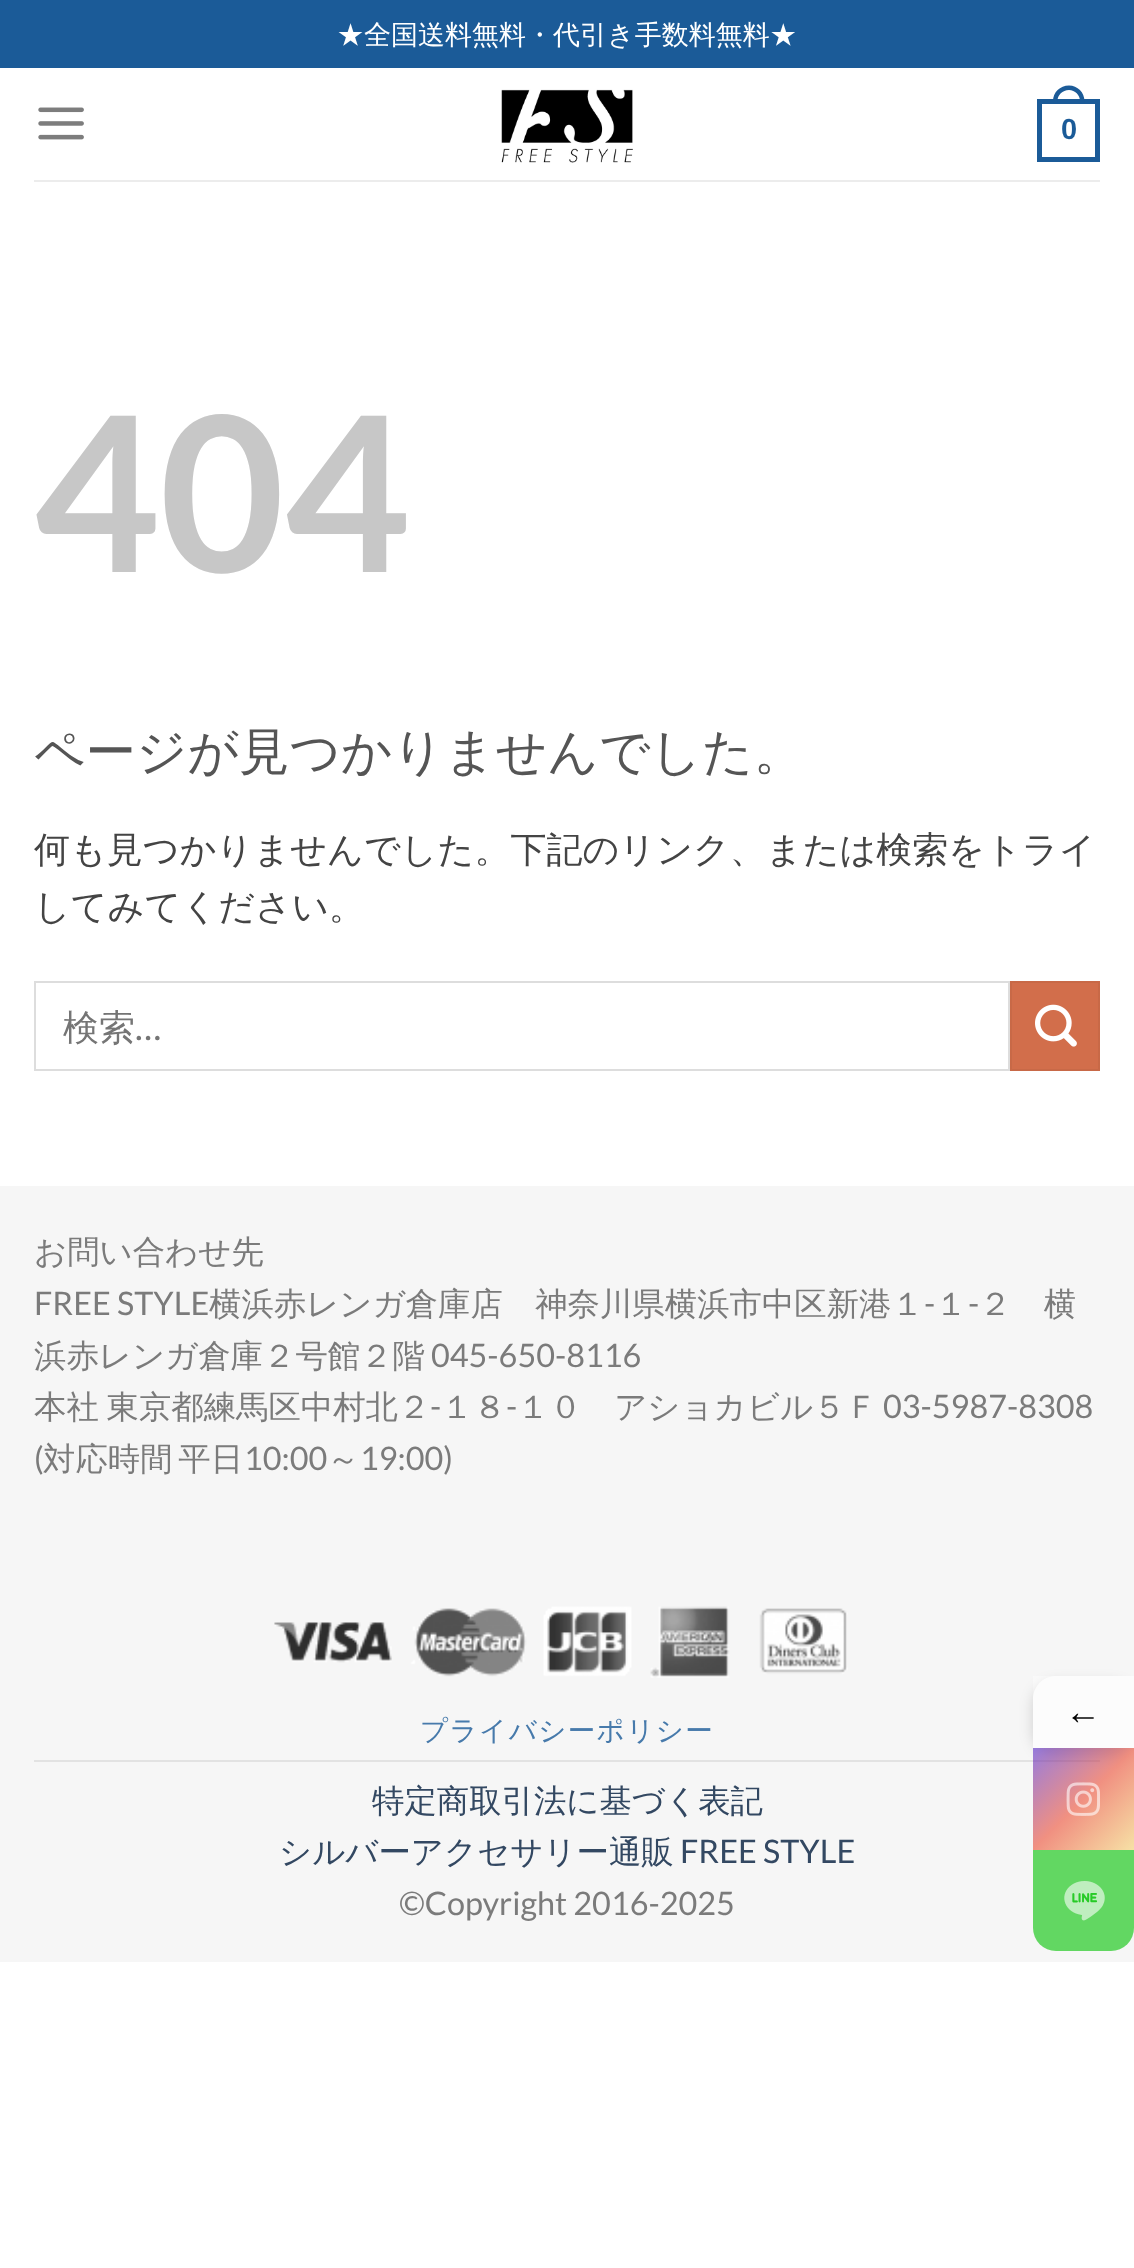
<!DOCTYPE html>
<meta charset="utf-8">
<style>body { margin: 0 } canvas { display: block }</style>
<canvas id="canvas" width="1134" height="2268"></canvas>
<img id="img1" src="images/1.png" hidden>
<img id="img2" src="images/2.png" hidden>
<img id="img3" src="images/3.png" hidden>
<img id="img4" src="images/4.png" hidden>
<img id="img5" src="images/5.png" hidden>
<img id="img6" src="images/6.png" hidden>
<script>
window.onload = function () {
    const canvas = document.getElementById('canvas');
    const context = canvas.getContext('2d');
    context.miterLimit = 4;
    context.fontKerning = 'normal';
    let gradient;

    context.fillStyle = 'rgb(255, 255, 255)';
    context.fillRect(0, 0, 1134, 2268);
    context.fillStyle = 'rgb(27, 91, 152)';
    context.fillRect(0, 0, 1134, 68);
    context.drawImage(document.getElementById('img1'), 38, 107, 46, 33);
    context.drawImage(document.getElementById('img2'), 501, 89, 132, 74);
    context.strokeStyle = 'rgb(27, 91, 152)';
    context.lineWidth = 5;
    context.strokeRect(1039.5, 101.5, 58, 58);
    context.beginPath();
    context.moveTo(1069, 85.5);
    context.bezierCurveTo(1077.5, 85.5, 1084.5, 92.5, 1084.5, 101);
    context.lineTo(1084.5, 103.5);
    context.lineTo(1053, 103.5);
    context.lineTo(1053, 101);
    context.bezierCurveTo(1053, 92.5, 1060, 85.5, 1069, 85.5);
    context.closePath();
    context.moveTo(1069, 90);
    context.bezierCurveTo(1075, 90, 1080, 95, 1080, 101);
    context.lineTo(1080, 103.5);
    context.lineTo(1057.5, 103.5);
    context.lineTo(1057.5, 101);
    context.bezierCurveTo(1057.5, 95, 1062.5, 90, 1069, 90);
    context.closePath();
    context.fill('evenodd');
    context.fillStyle = 'rgb(236, 236, 236)';
    context.fillRect(34, 180, 1066, 2);
    context.strokeStyle = 'rgb(221, 221, 221)';
    context.lineWidth = 2;
    context.strokeRect(35, 982, 974, 88);
    context.fillStyle = 'rgb(210, 110, 75)';
    context.beginPath();
    context.rect(1011, 982, 88, 88);
    context.fill();
    context.strokeStyle = 'rgb(200, 105, 71)';
    context.stroke();
    context.drawImage(document.getElementById('img3'), 1035, 1004, 42, 43);
    context.fillStyle = 'rgb(246, 246, 246)';
    context.fillRect(0, 1186, 1134, 776);
    context.drawImage(document.getElementById('img4'), 274, 1606, 574, 72);
    context.fillStyle = 'rgb(226, 226, 226)';
    context.fillRect(34, 1760, 1066, 2);
    context.fillStyle = 'rgb(250, 250, 250)';
    context.fillRect(1033, 1676, 101, 72);
    context.save();
    context.beginPath();
    context.moveTo(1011, 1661);
    context.lineTo(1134, 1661);
    context.lineTo(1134, 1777);
    context.lineTo(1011, 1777);
    context.closePath();
    context.moveTo(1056, 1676);
    context.lineTo(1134, 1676);
    context.lineTo(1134, 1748);
    context.lineTo(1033, 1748);
    context.lineTo(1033, 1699);
    context.bezierCurveTo(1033, 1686.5, 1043.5, 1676, 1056, 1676);
    context.closePath();
    context.clip('evenodd');
    context.fillStyle = 'rgba(0, 0, 0, 0.16)';
    context.filter = 'blur(7px)';
    context.beginPath();
    context.roundRect(1033, 1683, 101, 72, 23);
    context.fill();
    context.filter = 'none';
    context.restore();
    context.fillStyle = 'rgba(255, 255, 255, 0.45)';
    context.beginPath();
    context.roundRect(1033, 1676, 101, 72, [23, 0, 0, 0]);
    context.fill();
    gradient = context.createLinearGradient(1033, 1748, 1134, 1850);
    gradient.addColorStop(0, 'rgba(88, 43, 205, 0.6)');
    gradient.addColorStop(0.5, 'rgba(237, 76, 51, 0.6)');
    gradient.addColorStop(1, 'rgba(247, 211, 111, 0.6)');
    context.fillStyle = gradient;
    context.fillRect(1033, 1748, 101, 102);
    context.drawImage(document.getElementById('img5'), 1066, 1782, 34, 34);
    context.fillStyle = 'rgb(98, 215, 98)';
    context.beginPath();
    context.roundRect(1033, 1850, 101, 101, [0, 0, 23, 23]);
    context.fill();
    context.drawImage(document.getElementById('img6'), 1064, 1881, 41, 40);
    context.font = '500 27px WenQuanYi Zen Hei';
    context.fillStyle = 'rgb(255, 255, 255)';
    context.fillText('★全国送料無料・代引き手数料無料★', 337, 44);
    context.font = 'bold 29px Liberation Sans';
    context.fillStyle = 'rgb(27, 91, 152)';
    context.fillText('0', 1061, 139);
    context.font = 'bold 216px Lato';
    context.fillStyle = 'rgb(199, 199, 199)';
    context.fillText('404', 34, 572);
    context.font = '500 50.4px WenQuanYi Zen Hei';
    context.fillStyle = 'rgb(85, 85, 85)';
    context.fillText('ページが見つかりませんでした。', 34, 769);
    context.font = '500 36px WenQuanYi Zen Hei';
    context.fillStyle = 'rgb(68, 68, 68)';
    context.fillText('何も見つかりませんでした。下記のリンク、または検索をトライ', 34, 862);
    context.fillText('してみてください。', 34, 919);
    context.fillStyle = 'rgb(117, 117, 117)';
    context.fillText('検索', 63, 1040);
    context.font = '36px Lato';
    context.fillText('…', 135, 1040);
    context.font = '500 32.4px WenQuanYi Zen Hei';
    context.fillStyle = 'rgb(123, 123, 123)';
    context.fillText('お問い合わせ先', 34, 1263);
    context.font = '32.4px Lato';
    context.fillText('FREE STYLE', 34, 1315);
    context.font = '500 32.4px WenQuanYi Zen Hei';
    context.fillText('横浜赤レンガ倉庫店　神奈川県横浜市中区新港１', 209, 1315);
    context.font = '32.4px Lato';
    context.fillText('-', 924, 1315);
    context.font = '500 32.4px WenQuanYi Zen Hei';
    context.fillText('１', 935, 1315);
    context.font = '32.4px Lato';
    context.fillText('-', 968, 1315);
    context.font = '500 32.4px WenQuanYi Zen Hei';
    context.fillText('２　横', 979, 1315);
    context.fillText('浜赤レンガ倉庫２号館２階', 34, 1367);
    context.font = '32.4px Lato';
    context.fillText('045-650-8116', 431, 1367);
    context.wordSpacing = '-2px';
    context.font = '500 32.4px WenQuanYi Zen Hei';
    context.fillText('本社 東京都練馬区中村北２', 34, 1418);
    context.wordSpacing = '0px';
    context.font = '32.4px Lato';
    context.fillText('-', 430, 1418);
    context.font = '500 32.4px WenQuanYi Zen Hei';
    context.fillText('１８', 441, 1418);
    context.font = '32.4px Lato';
    context.fillText('-', 506, 1418);
    context.font = '500 32.4px WenQuanYi Zen Hei';
    context.fillText('１０　アショカビル５Ｆ', 517, 1418);
    context.font = '32.4px Lato';
    context.fillText('03-5987-8308', 883, 1418);
    context.fillText('(', 34, 1470);
    context.wordSpacing = '-4px';
    context.font = '500 32.4px WenQuanYi Zen Hei';
    context.fillText('対応時間 平日', 43, 1470);
    context.wordSpacing = '0px';
    context.font = '32.4px Lato';
    context.fillText('10:00', 244, 1470);
    context.font = '500 32.4px WenQuanYi Zen Hei';
    context.fillText('～', 327, 1470);
    context.font = '32.4px Lato';
    context.fillText('19:00)', 360, 1470);
    context.letterSpacing = '1.4px';
    context.font = '500 27.5px WenQuanYi Zen Hei';
    context.fillStyle = 'rgb(71, 122, 171)';
    context.fillText('プライバシーポリシー', 420, 1740);
    context.letterSpacing = '0px';
    context.font = '500 32.4px WenQuanYi Zen Hei';
    context.fillStyle = 'rgb(51, 72, 98)';
    context.fillText('特定商取引法に基づく表記', 372, 1812);
    context.fillText('シルバーアクセサリー通販', 279, 1863);
    context.font = '32.4px Lato';
    context.fillText('FREE STYLE', 680, 1863);
    context.fillStyle = 'rgb(123, 123, 123)';
    context.fillText('©Copyright 2016-2025', 399, 1915);
    context.font = '36px Liberation Serif';
    context.fillStyle = 'rgb(0, 0, 0)';
    context.fillText('←', 1065, 1724);
};
</script>
